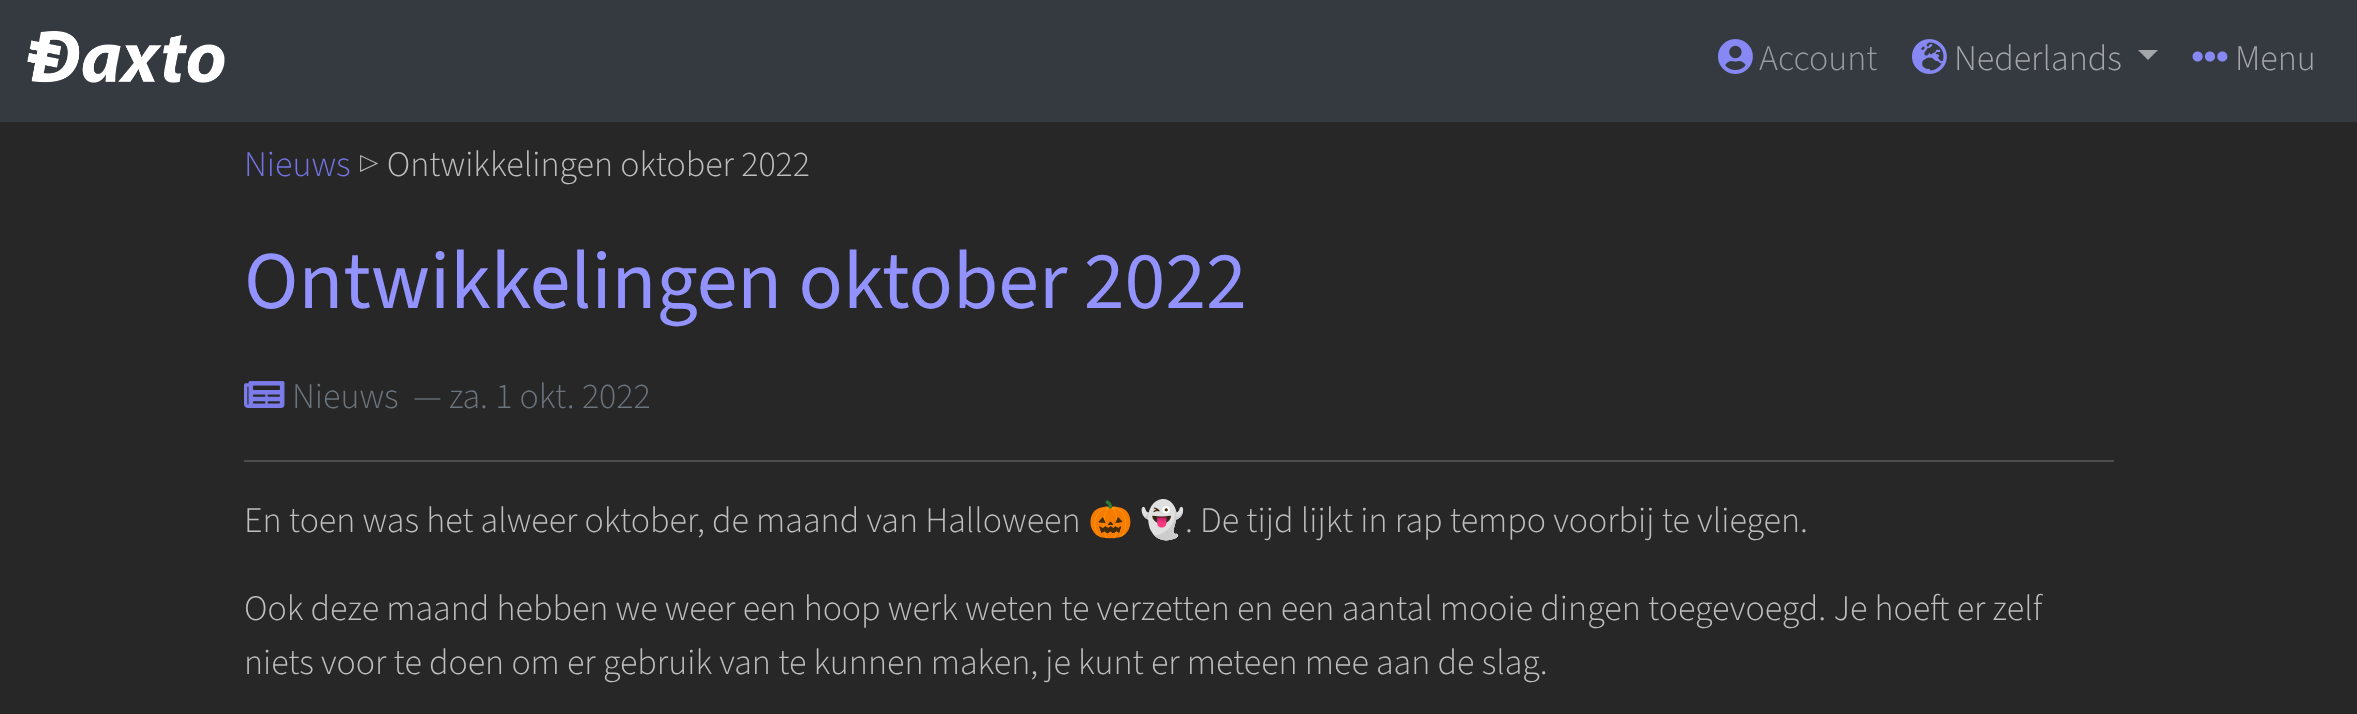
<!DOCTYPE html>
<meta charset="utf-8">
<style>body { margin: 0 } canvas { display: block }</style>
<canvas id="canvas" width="2357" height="714"></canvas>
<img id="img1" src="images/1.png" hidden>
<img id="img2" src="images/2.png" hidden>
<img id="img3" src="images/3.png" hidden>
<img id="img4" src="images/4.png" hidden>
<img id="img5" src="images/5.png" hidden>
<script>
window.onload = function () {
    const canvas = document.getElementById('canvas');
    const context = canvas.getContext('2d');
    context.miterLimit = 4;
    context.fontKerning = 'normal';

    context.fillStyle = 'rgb(39, 39, 39)';
    context.fillRect(0, 0, 2357, 714);
    context.fillStyle = 'rgb(52, 58, 64)';
    context.fillRect(0, 0, 2357, 122);
    context.drawImage(document.getElementById('img1'), 27, 31, 198, 52);
    context.drawImage(document.getElementById('img2'), 1718, 39, 35, 35);
    context.drawImage(document.getElementById('img3'), 1912, 39, 35, 35);
    context.fillStyle = 'rgb(164, 166, 169)';
    context.beginPath();
    context.moveTo(2138, 50);
    context.lineTo(2158, 50);
    context.lineTo(2148, 60);
    context.closePath();
    context.fill();
    context.drawImage(document.getElementById('img4'), 2192, 51, 36, 11);
    context.drawImage(document.getElementById('img5'), 244, 381, 41, 27);
    context.fillStyle = 'rgb(77, 77, 77)';
    context.fillRect(244, 460, 1870, 2);
    context.font = '300 35.95px "Source Sans 3"';
    context.fillStyle = 'rgb(154, 157, 160)';
    context.fillText('Account', 1759, 70);
    context.fillStyle = 'rgb(164, 166, 169)';
    context.fillText('Nederlands', 1954, 70);
    context.fillText('Menu', 2235, 70);
    context.fillStyle = 'rgb(115, 115, 226)';
    context.fillText('Nieuws', 244, 176);
    context.fillStyle = 'rgb(190, 190, 190)';
    context.fillText('▷ Ontwikkelingen oktober 2022', 358, 176);
    context.font = '82px "Source Sans 3"';
    context.fillStyle = 'rgb(147, 147, 255)';
    context.fillText('Ontwikkelingen oktober 2022', 244, 308);
    context.font = '300 35.95px "Source Sans 3"';
    context.fillStyle = 'rgb(108, 117, 125)';
    context.fillText('Nieuws  — za. 1 okt. 2022', 292, 408);
    context.fillStyle = 'rgb(190, 190, 190)';
    context.fillText('En toen was het alweer oktober, de maand van Halloween', 244, 532);
    context.font = '35.95px Noto Color Emoji';
    context.fillText('🎃', 1088, 532);
    context.fillText('👻', 1140, 532);
    context.font = '300 35.95px "Source Sans 3"';
    context.fillText('. De tijd lijkt in rap tempo voorbij te vliegen.', 1185, 532);
    context.fillText('Ook deze maand hebben we weer een hoop werk weten te verzetten en een aantal mooie dingen toegevoegd. Je hoeft er zelf', 244, 620);
    context.fillText('niets voor te doen om er gebruik van te kunnen maken, je kunt er meteen mee aan de slag.', 244, 674);
};
</script>
